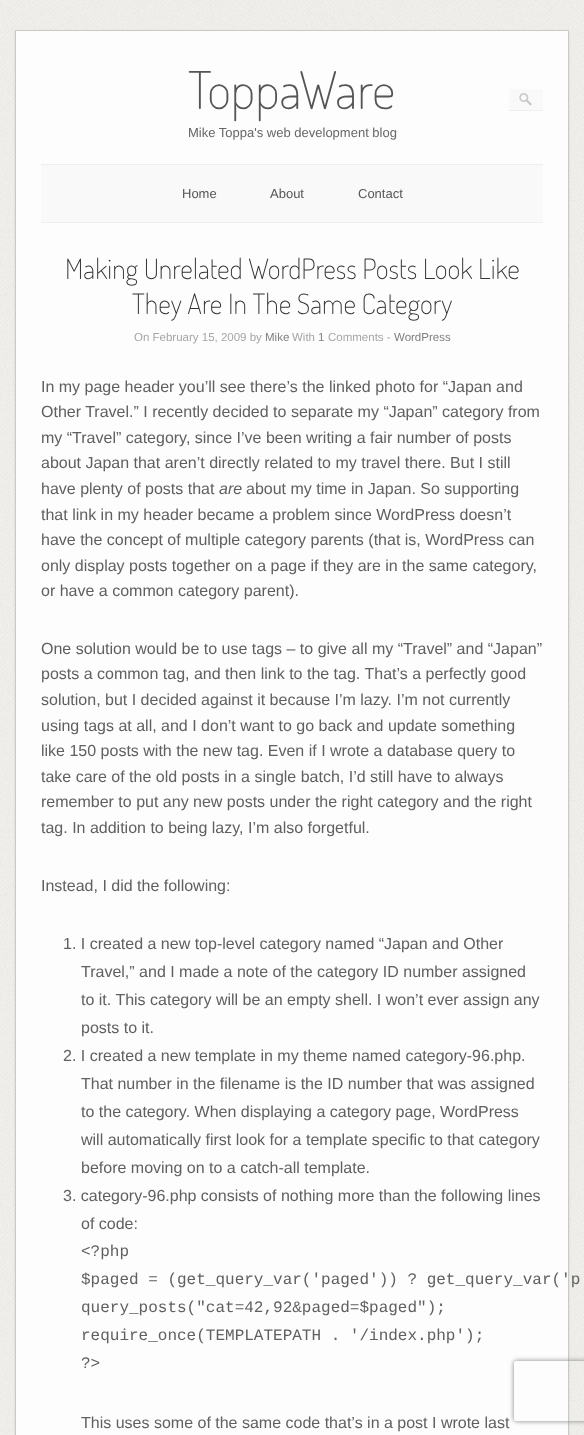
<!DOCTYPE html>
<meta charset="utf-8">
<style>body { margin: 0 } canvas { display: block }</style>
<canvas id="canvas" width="584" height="1435"></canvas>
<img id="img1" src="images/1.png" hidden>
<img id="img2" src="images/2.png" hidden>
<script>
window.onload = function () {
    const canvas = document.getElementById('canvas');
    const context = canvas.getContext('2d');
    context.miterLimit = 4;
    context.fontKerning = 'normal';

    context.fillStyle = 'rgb(255, 255, 255)';
    context.fillRect(0, 0, 584, 1435);
    context.drawImage(document.getElementById('img1'), 0, 0, 584, 1435);
    context.fillStyle = 'rgba(0, 0, 0, 0.1)';
    context.filter = 'blur(1px)';
    context.beginPath();
    context.rect(15, 31, 554, 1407);
    context.fill();
    context.filter = 'none';
    context.fillStyle = 'rgb(253, 253, 253)';
    context.beginPath();
    context.rect(15.5, 30.5, 553, 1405);
    context.fill();
    context.strokeStyle = 'rgb(203, 201, 199)';
    context.stroke();
    context.fillStyle = 'rgb(249, 249, 249)';
    context.fillRect(509, 89, 34, 21);
    context.drawImage(document.getElementById('img2'), 519, 93, 13, 13);
    context.fillStyle = 'rgb(238, 238, 238)';
    context.fillRect(509, 110, 34, 1);
    context.fillStyle = 'rgb(249, 249, 249)';
    context.fillRect(41, 165, 502, 57);
    context.fillStyle = 'rgb(238, 238, 238)';
    context.fillRect(41, 164, 502, 1);
    context.fillRect(41, 222, 502, 1);
    context.save();
    context.beginPath();
    context.moveTo(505, 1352);
    context.lineTo(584, 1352);
    context.lineTo(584, 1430);
    context.lineTo(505, 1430);
    context.closePath();
    context.moveTo(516, 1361);
    context.lineTo(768, 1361);
    context.bezierCurveTo(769, 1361, 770, 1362, 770, 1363);
    context.lineTo(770, 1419);
    context.bezierCurveTo(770, 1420, 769, 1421, 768, 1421);
    context.lineTo(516, 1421);
    context.bezierCurveTo(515, 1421, 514, 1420, 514, 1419);
    context.lineTo(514, 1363);
    context.bezierCurveTo(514, 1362, 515, 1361, 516, 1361);
    context.closePath();
    context.clip('evenodd');
    context.fillStyle = 'rgb(128, 128, 128)';
    context.filter = 'blur(2.5px)';
    context.beginPath();
    context.roundRect(514, 1361, 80, 60, 2);
    context.fill();
    context.filter = 'none';
    context.restore();
    context.font = '200 52px "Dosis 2"';
    context.fillStyle = 'rgb(85, 85, 85)';
    context.fillText('ToppaWare', 188, 109);
    context.font = '13px Liberation Sans';
    context.fillStyle = 'rgb(102, 102, 102)';
    context.fillText('Mike Toppa\'s web development blog', 188, 137);
    context.fillStyle = 'rgb(85, 85, 85)';
    context.fillText('Home', 182, 198);
    context.fillText('About', 270, 198);
    context.fillText('Contact', 358, 198);
    context.font = '200 28px Dosis';
    context.fillStyle = 'rgb(51, 51, 51)';
    context.fillText('Making Unrelated WordPress Posts Look Like', 65, 279);
    context.fillText('They Are In The Same Category', 132, 314);
    context.font = '11.5px Liberation Sans';
    context.fillStyle = 'rgb(166, 166, 166)';
    context.fillText('On February 15, 2009 by', 134, 341);
    context.fillStyle = 'rgb(128, 128, 128)';
    context.fillText('Mike', 265, 341);
    context.fillStyle = 'rgb(166, 166, 166)';
    context.fillText('With', 292, 341);
    context.fillStyle = 'rgb(128, 128, 128)';
    context.fillText('1', 318, 341);
    context.fillStyle = 'rgb(166, 166, 166)';
    context.fillText('Comments -', 328, 341);
    context.fillStyle = 'rgb(128, 128, 128)';
    context.fillText('WordPress', 394, 341);
    context.font = '16px Liberation Sans';
    context.fillStyle = 'rgb(96, 96, 96)';
    context.fillText('In my page header you’ll see there’s the linked photo for “Japan and', 41, 392);
    context.fillText('Other Travel.” I recently decided to separate my “Japan” category from', 41, 417);
    context.fillText('my “Travel” category, since I’ve been writing a fair number of posts', 41, 443);
    context.fillText('about Japan that aren’t directly related to my travel there. But I still', 41, 468);
    context.fillText('have plenty of posts that', 41, 494);
    context.font = 'italic 16px Liberation Sans';
    context.fillText('are', 219, 494);
    context.font = '16px Liberation Sans';
    context.fillText('about my time in Japan. So supporting', 246, 494);
    context.fillText('that link in my header became a problem since WordPress doesn’t', 41, 520);
    context.fillText('have the concept of multiple category parents (that is, WordPress can', 41, 545);
    context.fillText('only display posts together on a page if they are in the same category,', 41, 571);
    context.fillText('or have a common category parent).', 41, 596);
    context.fillText('One solution would be to use tags – to give all my “Travel” and “Japan”', 41, 654);
    context.fillText('posts a common tag, and then link to the tag. That’s a perfectly good', 41, 679);
    context.fillText('solution, but I decided against it because I’m lazy. I’m not currently', 41, 705);
    context.fillText('using tags at all, and I don’t want to go back and update something', 41, 731);
    context.fillText('like 150 posts with the new tag. Even if I wrote a database query to', 41, 756);
    context.fillText('take care of the old posts in a single batch, I’d still have to always', 41, 782);
    context.fillText('remember to put any new posts under the right category and the right', 41, 807);
    context.fillText('tag. In addition to being lazy, I’m also forgetful.', 41, 833);
    context.fillText('Instead, I did the following:', 41, 891);
    context.fillText('1. I created a new top-level category named “Japan and Other', 63, 949);
    context.fillText('Travel,” and I made a note of the category ID number assigned', 81, 977);
    context.fillText('to it. This category will be an empty shell. I won’t ever assign any', 81, 1005);
    context.fillText('posts to it.', 81, 1033);
    context.fillText('2. I created a new template in my theme named category-96.php.', 63, 1061);
    context.fillText('That number in the filename is the ID number that was assigned', 81, 1089);
    context.fillText('to the category. When displaying a category page, WordPress', 81, 1117);
    context.fillText('will automatically first look for a template specific to that category', 81, 1145);
    context.fillText('before moving on to a catch-all template.', 81, 1173);
    context.fillText('3. category-96.php consists of nothing more than the following lines', 63, 1201);
    context.fillText('of code:', 81, 1229);
    context.font = '16px Liberation Mono';
    context.fillText('<?php', 81, 1256);
    context.fillText('$paged = (get_query_var(\'paged\')) ? get_query_var(\'p', 81, 1284);
    context.fillText('query_posts("cat=42,92&paged=$paged");', 81, 1312);
    context.fillText('require_once(TEMPLATEPATH . \'/index.php\');', 81, 1340);
    context.fillText('?>', 81, 1368);
    context.font = '16px Liberation Sans';
    context.fillText('This uses some of the same code that’s in a post I wrote last', 81, 1428);
};
</script>
